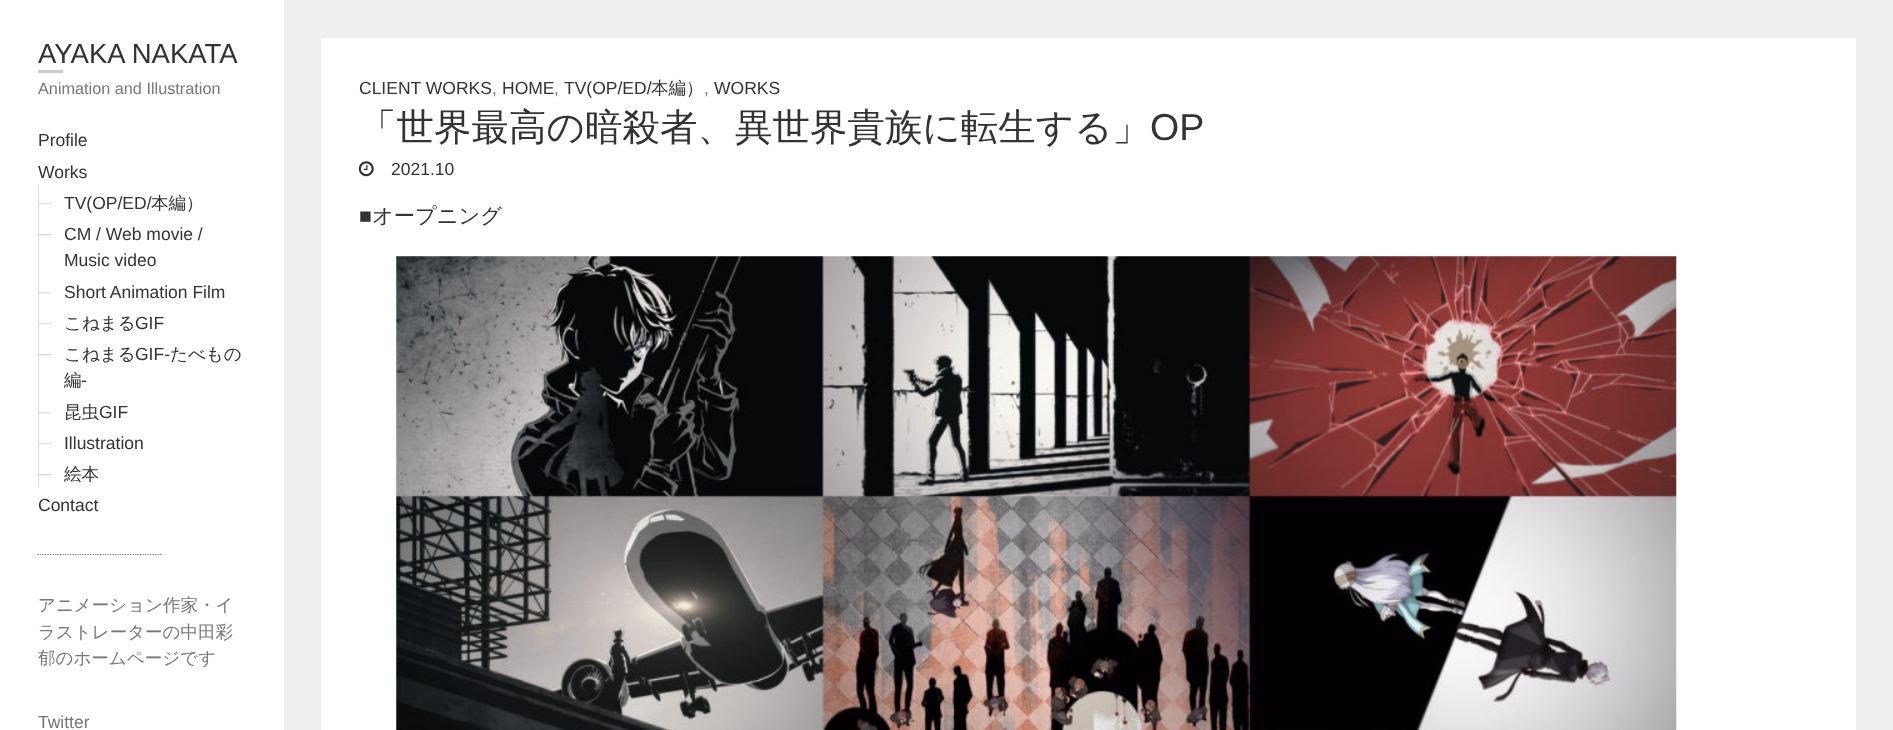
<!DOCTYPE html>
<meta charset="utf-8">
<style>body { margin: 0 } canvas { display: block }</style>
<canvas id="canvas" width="1893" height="730"></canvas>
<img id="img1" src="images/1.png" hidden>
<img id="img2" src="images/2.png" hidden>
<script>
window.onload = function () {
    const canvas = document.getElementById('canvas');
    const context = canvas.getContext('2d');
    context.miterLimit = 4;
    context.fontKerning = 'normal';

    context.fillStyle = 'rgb(238, 238, 238)';
    context.fillRect(0, 0, 1893, 730);
    context.fillStyle = 'rgb(255, 255, 255)';
    context.fillRect(0, 0, 284, 730);
    context.fillStyle = 'rgb(204, 204, 204)';
    context.fillRect(38, 70, 25, 3);
    context.fillStyle = 'rgb(221, 221, 221)';
    context.fillRect(38, 185, 1, 303);
    context.beginPath();
    context.moveTo(37.5, 554.5);
    context.lineTo(162.5, 554.5);
    context.strokeStyle = 'rgb(119, 119, 119)';
    context.lineWidth = 1.2;
    context.setLineDash([1.25, 1.25]);
    context.stroke();
    context.fillStyle = 'rgb(255, 255, 255)';
    context.fillRect(321, 38, 1535, 692);
    context.drawImage(document.getElementById('img1'), 358, 161, 16, 16);
    context.drawImage(document.getElementById('img2'), 396, 256, 1281, 474);
    context.font = '27.5px Liberation Sans';
    context.fillStyle = 'rgb(51, 51, 51)';
    context.fillText('AYAKA NAKATA', 38, 63);
    context.font = '16.25px Liberation Sans';
    context.fillStyle = 'rgb(119, 119, 119)';
    context.fillText('Animation and Illustration', 38, 94);
    context.font = '17.5px Liberation Sans';
    context.fillStyle = 'rgb(51, 51, 51)';
    context.fillText('Profile', 38, 146);
    context.fillText('Works', 38, 178);
    context.fillStyle = 'rgb(221, 221, 221)';
    context.fillText('─', 39, 209);
    context.fillStyle = 'rgb(51, 51, 51)';
    context.fillText('TV(OP/ED/', 64, 209);
    context.font = '500 17.5px WenQuanYi Zen Hei';
    context.fillText('本編）', 151, 209);
    context.font = '17.5px Liberation Sans';
    context.fillStyle = 'rgb(221, 221, 221)';
    context.fillText('─', 39, 240);
    context.fillStyle = 'rgb(51, 51, 51)';
    context.fillText('CM / Web movie /', 64, 240);
    context.fillText('Music video', 64, 266);
    context.fillStyle = 'rgb(221, 221, 221)';
    context.fillText('─', 39, 298);
    context.fillStyle = 'rgb(51, 51, 51)';
    context.fillText('Short Animation Film', 64, 298);
    context.fillStyle = 'rgb(221, 221, 221)';
    context.fillText('─', 39, 329);
    context.font = '500 17.5px WenQuanYi Zen Hei';
    context.fillStyle = 'rgb(51, 51, 51)';
    context.fillText('こねまる', 64, 329);
    context.font = '17.5px Liberation Sans';
    context.fillText('GIF', 135, 329);
    context.fillStyle = 'rgb(221, 221, 221)';
    context.fillText('─', 39, 360);
    context.font = '500 17.5px WenQuanYi Zen Hei';
    context.fillStyle = 'rgb(51, 51, 51)';
    context.fillText('こねまる', 64, 360);
    context.font = '17.5px Liberation Sans';
    context.fillText('GIF-', 135, 360);
    context.font = '500 17.5px WenQuanYi Zen Hei';
    context.fillText('たべもの', 170, 360);
    context.fillText('編', 64, 386);
    context.font = '17.5px Liberation Sans';
    context.fillText('-', 81, 386);
    context.fillStyle = 'rgb(221, 221, 221)';
    context.fillText('─', 39, 418);
    context.font = '500 17.5px WenQuanYi Zen Hei';
    context.fillStyle = 'rgb(51, 51, 51)';
    context.fillText('昆虫', 64, 418);
    context.font = '17.5px Liberation Sans';
    context.fillText('GIF', 99, 418);
    context.fillStyle = 'rgb(221, 221, 221)';
    context.fillText('─', 39, 449);
    context.fillStyle = 'rgb(51, 51, 51)';
    context.fillText('Illustration', 64, 449);
    context.fillStyle = 'rgb(221, 221, 221)';
    context.fillText('─', 39, 480);
    context.font = '500 17.5px WenQuanYi Zen Hei';
    context.fillStyle = 'rgb(51, 51, 51)';
    context.fillText('絵本', 64, 480);
    context.font = '17.5px Liberation Sans';
    context.fillText('Contact', 38, 511);
    context.fillText('CLIENT WORKS', 359, 94);
    context.fillStyle = 'rgb(119, 119, 119)';
    context.fillText(',', 492, 94);
    context.fillStyle = 'rgb(51, 51, 51)';
    context.fillText('HOME', 502, 94);
    context.fillStyle = 'rgb(119, 119, 119)';
    context.fillText(',', 554, 94);
    context.fillStyle = 'rgb(51, 51, 51)';
    context.fillText('TV(OP/ED/', 564, 94);
    context.font = '500 17.5px WenQuanYi Zen Hei';
    context.fillText('本編）', 651, 94);
    context.font = '17.5px Liberation Sans';
    context.fillStyle = 'rgb(119, 119, 119)';
    context.fillText(',', 704, 94);
    context.fillStyle = 'rgb(51, 51, 51)';
    context.fillText('WORKS', 714, 94);
    context.font = '500 37.5px WenQuanYi Zen Hei';
    context.fillText('「世界最高の暗殺者、異世界貴族に転生する」', 359, 140);
    context.font = '37.5px Liberation Sans';
    context.fillText('OP', 1150, 140);
    context.font = '17.5px Liberation Sans';
    context.fillText('2021.10', 391, 175);
    context.font = '21.25px Liberation Sans';
    context.fillText('■', 359, 223);
    context.font = '500 21.25px WenQuanYi Zen Hei';
    context.fillText('オープニング', 372, 223);
    context.font = '500 17.5px WenQuanYi Zen Hei';
    context.fillStyle = 'rgb(119, 119, 119)';
    context.fillText('アニメーション作家・イ', 38, 611);
    context.fillText('ラストレーターの中田彩', 38, 638);
    context.fillText('郁のホームページです', 38, 664);
    context.font = '17.5px Liberation Sans';
    context.fillText('Twitter', 38, 728);
};
</script>
